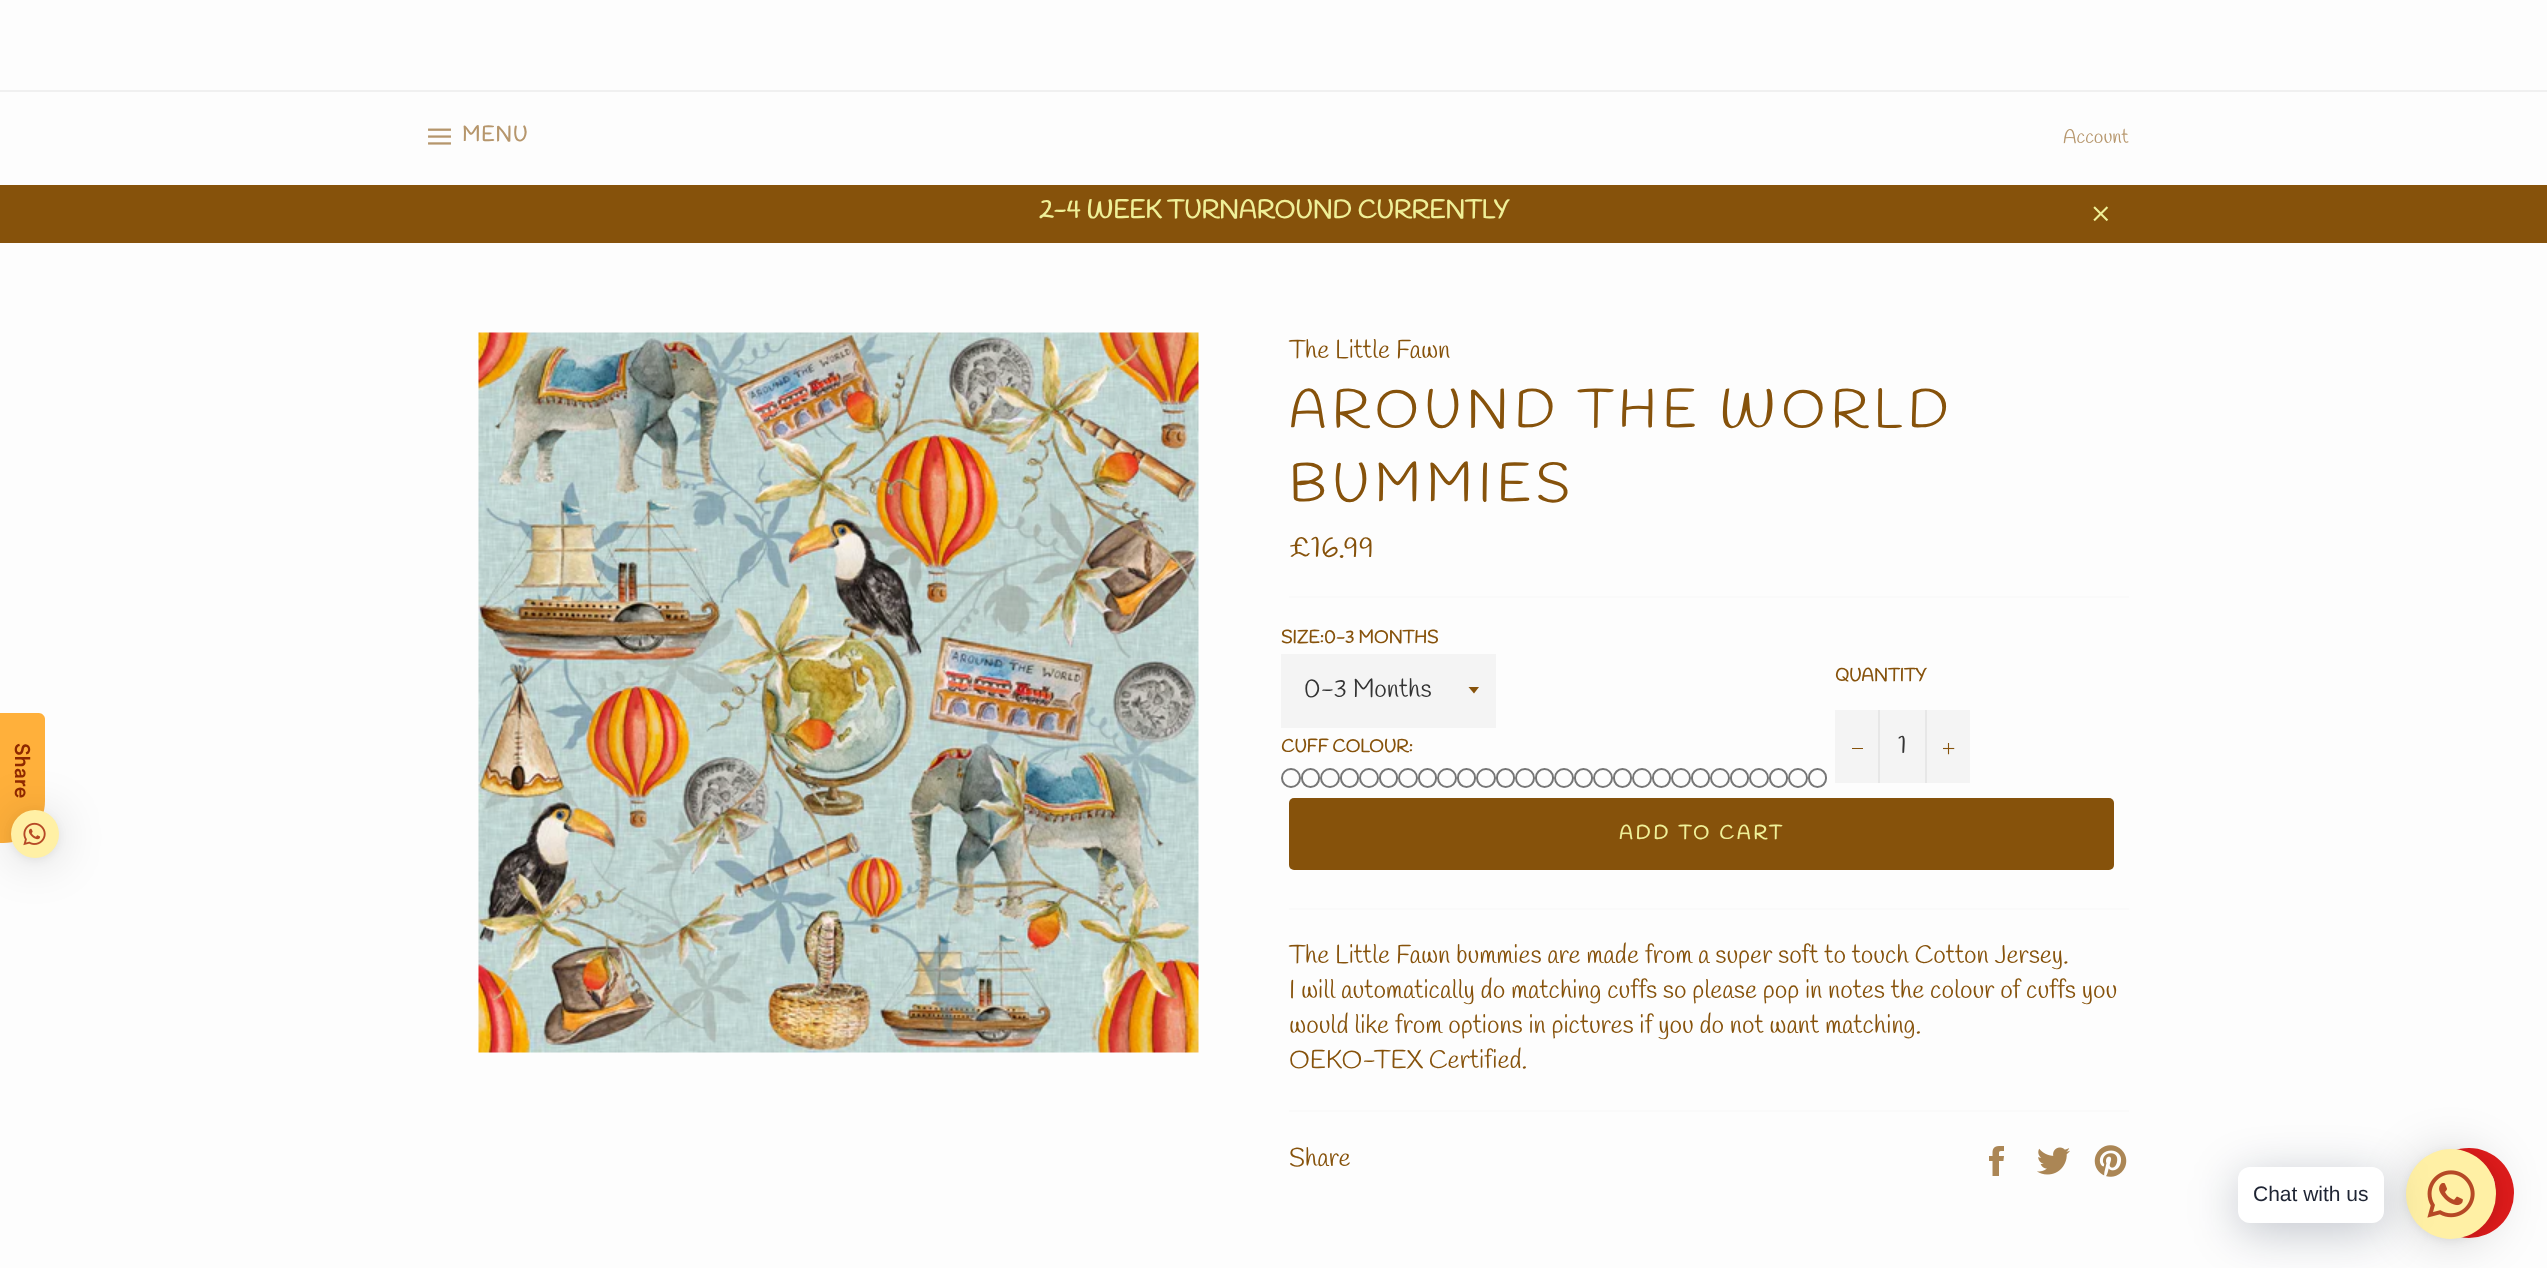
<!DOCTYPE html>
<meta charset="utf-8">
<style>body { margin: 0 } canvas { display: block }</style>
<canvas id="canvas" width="2547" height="1268"></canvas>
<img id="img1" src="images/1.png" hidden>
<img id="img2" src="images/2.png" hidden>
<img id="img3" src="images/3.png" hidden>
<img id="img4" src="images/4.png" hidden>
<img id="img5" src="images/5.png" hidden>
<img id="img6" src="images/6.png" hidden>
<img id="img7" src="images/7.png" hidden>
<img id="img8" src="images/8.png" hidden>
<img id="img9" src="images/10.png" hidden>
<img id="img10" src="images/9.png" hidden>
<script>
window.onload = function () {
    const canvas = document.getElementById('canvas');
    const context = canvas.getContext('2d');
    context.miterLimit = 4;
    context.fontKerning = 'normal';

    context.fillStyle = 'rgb(253, 253, 253)';
    context.fillRect(0, 0, 2547, 1268);
    context.fillStyle = 'rgb(240, 240, 240)';
    context.fillRect(0, 90, 2547, 2);
    context.drawImage(document.getElementById('img1'), 428, 128, 23, 17);
    context.fillStyle = 'rgb(134, 82, 11)';
    context.fillRect(0, 185, 2547, 58);
    context.drawImage(document.getElementById('img2'), 2093, 206, 16, 16);
    context.fillStyle = 'rgb(255, 176, 59)';
    context.beginPath();
    context.moveTo(0, 843);
    context.lineTo(0, 713);
    context.lineTo(39, 713);
    context.bezierCurveTo(42, 713, 45, 716, 45, 719);
    context.lineTo(45, 801);
    context.bezierCurveTo(45, 825, 26, 843, 3, 843);
    context.closePath();
    context.fill();
    context.fillStyle = 'rgba(0, 0, 0, 0.16)';
    context.filter = 'blur(24px)';
    context.beginPath();
    context.roundRect(11, 813, 48, 48, 24);
    context.fill();
    context.filter = 'none';
    context.fillStyle = 'rgba(0, 0, 0, 0.06)';
    context.filter = 'blur(4.5px)';
    context.beginPath();
    context.roundRect(11, 812, 48, 48, 24);
    context.fill();
    context.filter = 'none';
    context.fillStyle = 'rgb(255, 240, 165)';
    context.beginPath();
    context.arc(35, 834, 24, 0, 2 * Math.PI);
    context.fill();
    context.drawImage(document.getElementById('img3'), 23, 822, 23, 24);
    context.drawImage(document.getElementById('img4'), 478, 332, 721, 721);
    context.fillStyle = 'rgb(250, 250, 250)';
    context.fillRect(1289, 596, 840, 2);
    context.fillStyle = 'rgb(244, 244, 244)';
    context.fillRect(1281, 654, 215, 74);
    context.fillStyle = 'rgb(134, 82, 11)';
    context.beginPath();
    context.moveTo(1468.5, 687);
    context.lineTo(1474, 693.5);
    context.lineTo(1479, 687);
    context.closePath();
    context.fill();
    context.beginPath();
    context.arc(1291, 778, 9, 0, 2 * Math.PI);
    context.strokeStyle = 'rgb(118, 118, 118)';
    context.lineWidth = 2;
    context.stroke();
    context.beginPath();
    context.roundRect(1302, 769, 17, 18, 8.5);
    context.stroke();
    context.beginPath();
    context.arc(1330, 778, 9, 0, 2 * Math.PI);
    context.stroke();
    context.beginPath();
    context.roundRect(1341, 769, 17, 18, 8.5);
    context.stroke();
    context.beginPath();
    context.arc(1369, 778, 9, 0, 2 * Math.PI);
    context.stroke();
    context.beginPath();
    context.roundRect(1380, 769, 17, 18, 8.5);
    context.stroke();
    context.beginPath();
    context.arc(1408, 778, 9, 0, 2 * Math.PI);
    context.stroke();
    context.beginPath();
    context.roundRect(1419, 769, 17, 18, 8.5);
    context.stroke();
    context.beginPath();
    context.arc(1447, 778, 9, 0, 2 * Math.PI);
    context.stroke();
    context.beginPath();
    context.roundRect(1458, 769, 17, 18, 8.5);
    context.stroke();
    context.beginPath();
    context.arc(1486, 778, 9, 0, 2 * Math.PI);
    context.stroke();
    context.beginPath();
    context.roundRect(1497, 769, 17, 18, 8.5);
    context.stroke();
    context.beginPath();
    context.arc(1525, 778, 9, 0, 2 * Math.PI);
    context.stroke();
    context.beginPath();
    context.roundRect(1536, 769, 17, 18, 8.5);
    context.stroke();
    context.beginPath();
    context.arc(1564, 778, 9, 0, 2 * Math.PI);
    context.stroke();
    context.beginPath();
    context.roundRect(1575, 769, 17, 18, 8.5);
    context.stroke();
    context.beginPath();
    context.arc(1603, 778, 9, 0, 2 * Math.PI);
    context.stroke();
    context.beginPath();
    context.roundRect(1614, 769, 17, 18, 8.5);
    context.stroke();
    context.beginPath();
    context.arc(1642, 778, 9, 0, 2 * Math.PI);
    context.stroke();
    context.beginPath();
    context.roundRect(1653, 769, 17, 18, 8.5);
    context.stroke();
    context.beginPath();
    context.arc(1681, 778, 9, 0, 2 * Math.PI);
    context.stroke();
    context.beginPath();
    context.roundRect(1692, 769, 17, 18, 8.5);
    context.stroke();
    context.beginPath();
    context.arc(1720, 778, 9, 0, 2 * Math.PI);
    context.stroke();
    context.beginPath();
    context.roundRect(1731, 769, 17, 18, 8.5);
    context.stroke();
    context.beginPath();
    context.arc(1759, 778, 9, 0, 2 * Math.PI);
    context.stroke();
    context.beginPath();
    context.roundRect(1770, 769, 17, 18, 8.5);
    context.stroke();
    context.beginPath();
    context.arc(1798, 778, 9, 0, 2 * Math.PI);
    context.stroke();
    context.beginPath();
    context.roundRect(1809, 769, 17, 18, 8.5);
    context.stroke();
    context.fillStyle = 'rgb(244, 244, 244)';
    context.fillRect(1835, 710, 135, 73);
    context.fillStyle = 'rgb(231, 231, 231)';
    context.fillRect(1878, 710, 2, 73);
    context.fillStyle = 'rgb(134, 82, 11)';
    context.fillRect(1852, 748, 11, 1);
    context.fillStyle = 'rgb(231, 231, 231)';
    context.fillRect(1925, 710, 2, 73);
    context.drawImage(document.getElementById('img5'), 1943, 743, 12, 12);
    context.fillStyle = 'rgb(134, 82, 11)';
    context.beginPath();
    context.roundRect(1289, 798, 825, 72, 5);
    context.fill();
    context.fillStyle = 'rgb(250, 250, 250)';
    context.fillRect(1289, 908, 840, 2);
    context.fillRect(1289, 1110, 840, 2);
    context.drawImage(document.getElementById('img6'), 1989, 1146, 15, 30);
    context.drawImage(document.getElementById('img7'), 2037, 1147, 33, 28);
    context.drawImage(document.getElementById('img8'), 2094, 1145, 33, 32);
    context.fillStyle = 'rgb(226, 28, 28)';
    context.beginPath();
    context.arc(2469, 1193, 45, 0, 2 * Math.PI);
    context.fill();
    context.drawImage(document.getElementById('img9'), 2490, 1173, 6, 21);
    context.fillStyle = 'rgba(0, 0, 0, 0.16)';
    context.filter = 'blur(24px)';
    context.beginPath();
    context.roundRect(2406, 1152, 90, 90, 45);
    context.fill();
    context.filter = 'none';
    context.fillStyle = 'rgba(0, 0, 0, 0.06)';
    context.filter = 'blur(4.5px)';
    context.beginPath();
    context.roundRect(2406, 1151, 90, 90, 45);
    context.fill();
    context.filter = 'none';
    context.fillStyle = 'rgb(255, 240, 165)';
    context.beginPath();
    context.arc(2451, 1194, 45, 0, 2 * Math.PI);
    context.fill();
    context.fillStyle = 'rgba(0, 18, 46, 0.24)';
    context.filter = 'blur(24px)';
    context.beginPath();
    context.roundRect(2238, 1176, 146, 56, 12);
    context.fill();
    context.filter = 'none';
    context.fillStyle = 'rgb(255, 255, 255)';
    context.beginPath();
    context.roundRect(2238, 1167, 146, 56, 12);
    context.fill();
    context.drawImage(document.getElementById('img10'), 2427, 1170, 48, 48);
    context.letterSpacing = '1px';
    context.font = 'bold 21px Handlee';
    context.fillStyle = 'rgb(182, 150, 108)';
    context.fillText('MENU', 462, 141);
    context.letterSpacing = '0px';
    context.font = '19.5px Handlee';
    context.fillText('Account', 2063, 143);
    context.font = 'bold 25.5px Handlee';
    context.fillStyle = 'rgb(239, 240, 152)';
    context.fillText('2-4 WEEK TURNAROUND CURRENTLY', 1039, 218);
    context.font = '500 21px Circular';
    context.fillStyle = 'rgb(142, 40, 0)';
    context.save();
    context.translate(15, 743);
    context.rotate(90 * Math.PI / 180);
    context.fillText('Share', 0, 0);
    context.restore();
    context.font = '25.5px Handlee';
    context.fillStyle = 'rgb(134, 82, 11)';
    context.fillText('The Little Fawn', 1289, 358);
    context.letterSpacing = '5.4px';
    context.font = '54px Handlee';
    context.fillText('AROUND THE WORLD', 1289, 427);
    context.fillText('BUMMIES', 1289, 501);
    context.letterSpacing = '0px';
    context.font = '30px Handlee';
    context.fillText('£16.99', 1289, 557);
    context.font = 'bold 18px Handlee';
    context.fillText('SIZE:0-3 MONTHS', 1281, 643);
    context.font = '25.5px Handlee';
    context.fillStyle = 'rgb(51, 51, 51)';
    context.fillText('0-3 Months', 1304, 697);
    context.font = 'bold 18px Handlee';
    context.fillStyle = 'rgb(134, 82, 11)';
    context.fillText('CUFF COLOUR:', 1281, 752);
    context.fillText('QUANTITY', 1835, 681);
    context.font = '25.5px Handlee';
    context.fillStyle = 'rgb(51, 51, 51)';
    context.fillText('1', 1898, 753);
    context.letterSpacing = '3px';
    context.font = 'bold 19.5px Handlee';
    context.fillStyle = 'rgb(239, 240, 152)';
    context.fillText('ADD TO CART', 1619, 839);
    context.letterSpacing = '0px';
    context.font = '25.5px Handlee';
    context.fillStyle = 'rgb(134, 82, 11)';
    context.fillText('The Little Fawn bummies are made from a super soft to touch Cotton Jersey.', 1289, 963);
    context.fillText('I will automatically do matching cuffs so please pop in notes the colour of cuffs you', 1289, 998);
    context.fillText('would like from options in pictures if you do not want matching.', 1289, 1033);
    context.fillText('OEKO-TEX Certified.', 1289, 1068);
    context.fillText('Share', 1289, 1166);
    context.font = '21px Liberation Sans';
    context.fillStyle = 'rgb(30, 36, 51)';
    context.fillText('Chat with us', 2253, 1201);
};
</script>
